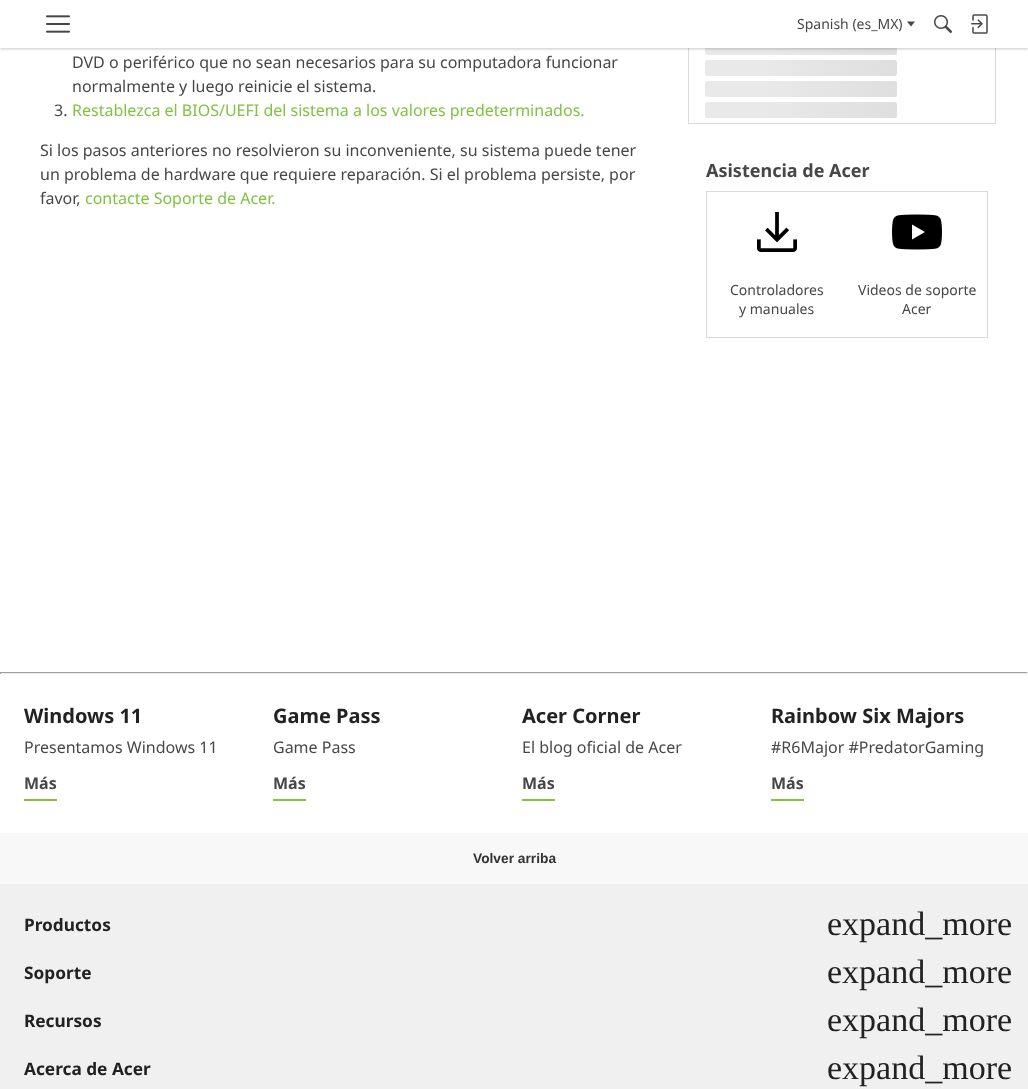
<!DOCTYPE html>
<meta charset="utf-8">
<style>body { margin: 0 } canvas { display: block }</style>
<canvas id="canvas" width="1028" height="1089"></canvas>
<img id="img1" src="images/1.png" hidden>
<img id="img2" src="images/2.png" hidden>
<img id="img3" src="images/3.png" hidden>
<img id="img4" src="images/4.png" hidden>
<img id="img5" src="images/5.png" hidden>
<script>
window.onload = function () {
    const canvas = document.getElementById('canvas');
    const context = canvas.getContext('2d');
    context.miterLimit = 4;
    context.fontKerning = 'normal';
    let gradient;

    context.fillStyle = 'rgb(255, 255, 255)';
    context.fillRect(0, 0, 1028, 1089);
    context.strokeStyle = 'rgb(218, 218, 218)';
    context.strokeRect(688.5, 38.5, 307, 85);
    gradient = context.createLinearGradient(705, 47, 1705, 47);
    gradient.addColorStop(0.06, 'rgb(233, 233, 233)');
    gradient.addColorStop(0.25, 'rgb(218, 218, 218)');
    gradient.addColorStop(0.34, 'rgb(233, 233, 233)');
    context.fillStyle = gradient;
    context.beginPath();
    context.roundRect(705, 39, 192, 16, 2);
    context.fill();
    context.fillStyle = 'rgba(0, 0, 0, 0.22)';
    context.filter = 'blur(1.5px)';
    context.beginPath();
    context.rect(0, 1, 1028, 48);
    context.fill();
    context.filter = 'none';
    context.fillStyle = 'rgb(255, 255, 255)';
    context.fillRect(0, 0, 1028, 48);
    context.drawImage(document.getElementById('img1'), 46, 15, 24, 18);
    context.fillStyle = 'rgb(71, 71, 71)';
    context.beginPath();
    context.moveTo(907, 21.5);
    context.lineTo(915, 21.5);
    context.lineTo(911, 26.5);
    context.closePath();
    context.fill();
    context.drawImage(document.getElementById('img2'), 934, 15, 18, 18);
    context.drawImage(document.getElementById('img3'), 971, 14, 17, 20);
    gradient = context.createLinearGradient(705, 68, 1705, 68);
    gradient.addColorStop(0.06, 'rgb(233, 233, 233)');
    gradient.addColorStop(0.25, 'rgb(218, 218, 218)');
    gradient.addColorStop(0.34, 'rgb(233, 233, 233)');
    context.fillStyle = gradient;
    context.beginPath();
    context.roundRect(705, 60, 192, 16, 2);
    context.fill();
    gradient = context.createLinearGradient(705, 89, 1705, 89);
    gradient.addColorStop(0.06, 'rgb(233, 233, 233)');
    gradient.addColorStop(0.25, 'rgb(218, 218, 218)');
    gradient.addColorStop(0.34, 'rgb(233, 233, 233)');
    context.fillStyle = gradient;
    context.beginPath();
    context.roundRect(705, 81, 192, 16, 2);
    context.fill();
    gradient = context.createLinearGradient(705, 110, 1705, 110);
    gradient.addColorStop(0.06, 'rgb(233, 233, 233)');
    gradient.addColorStop(0.25, 'rgb(218, 218, 218)');
    gradient.addColorStop(0.34, 'rgb(233, 233, 233)');
    context.fillStyle = gradient;
    context.beginPath();
    context.roundRect(705, 102, 192, 16, 2);
    context.fill();
    context.strokeRect(706.5, 191.5, 281, 146);
    context.drawImage(document.getElementById('img4'), 757, 212, 40, 40);
    context.drawImage(document.getElementById('img5'), 892, 214, 50, 36);
    context.fillStyle = 'rgb(159, 159, 159)';
    context.fillRect(0, 672, 1028, 1);
    context.fillStyle = 'rgb(238, 238, 238)';
    context.fillRect(1027, 672, 1, 2);
    context.fillRect(0, 673, 1028, 1);
    context.fillStyle = 'rgb(159, 159, 159)';
    context.fillRect(0, 672, 1, 2);
    context.fillStyle = 'rgb(128, 195, 67)';
    context.fillRect(24, 799, 33, 2);
    context.fillRect(273, 799, 33, 2);
    context.fillRect(522, 799, 33, 2);
    context.fillRect(771, 799, 33, 2);
    context.fillStyle = 'rgb(240, 240, 240)';
    context.fillRect(0, 884, 1028, 205);
    context.fillStyle = 'rgb(248, 248, 248)';
    context.fillRect(0, 833, 1028, 51);
    context.font = '14px Noto Sans';
    context.fillStyle = 'rgb(71, 71, 71)';
    context.fillText('Spanish (es_MX)', 797, 29);
    context.font = '16px Noto Sans';
    context.fillText('DVD o periférico que no sean necesarios para su computadora funcionar', 72, 68);
    context.fillText('normalmente y luego reinicie el sistema.', 72, 92);
    context.fillText('3.', 54, 116);
    context.fillStyle = 'rgb(128, 195, 67)';
    context.fillText('Restablezca el BIOS/UEFI del sistema a los valores predeterminados.', 72, 116);
    context.fillStyle = 'rgb(71, 71, 71)';
    context.fillText('Si los pasos anteriores no resolvieron su inconveniente, su sistema puede tener', 40, 156);
    context.fillText('un problema de hardware que requiere reparación. Si el problema persiste, por', 40, 180);
    context.fillText('favor,', 40, 204);
    context.fillStyle = 'rgb(128, 195, 67)';
    context.fillText('contacte Soporte de Acer.', 85, 204);
    context.font = 'bold 18px Noto Sans';
    context.fillStyle = 'rgb(71, 71, 71)';
    context.fillText('Asistencia de Acer', 706, 177);
    context.font = '14px Noto Sans';
    context.fillText('Controladores', 730, 295);
    context.fillText('y manuales', 739, 314);
    context.fillText('Videos de soporte', 858, 295);
    context.fillText('Acer', 902, 314);
    context.font = 'bold 20px Noto Sans';
    context.fillStyle = 'rgb(34, 34, 34)';
    context.fillText('Windows 11', 24, 723);
    context.font = '16px Noto Sans';
    context.fillStyle = 'rgb(71, 71, 71)';
    context.fillText('Presentamos Windows 11', 24, 753);
    context.font = 'bold 16px Noto Sans';
    context.fillText('Más', 24, 789);
    context.font = 'bold 20px Noto Sans';
    context.fillStyle = 'rgb(34, 34, 34)';
    context.fillText('Game Pass', 273, 723);
    context.font = '16px Noto Sans';
    context.fillStyle = 'rgb(71, 71, 71)';
    context.fillText('Game Pass', 273, 753);
    context.font = 'bold 16px Noto Sans';
    context.fillText('Más', 273, 789);
    context.font = 'bold 20px Noto Sans';
    context.fillStyle = 'rgb(34, 34, 34)';
    context.fillText('Acer Corner', 522, 723);
    context.font = '16px Noto Sans';
    context.fillStyle = 'rgb(71, 71, 71)';
    context.fillText('El blog oficial de Acer', 522, 753);
    context.font = 'bold 16px Noto Sans';
    context.fillText('Más', 522, 789);
    context.font = 'bold 20px Noto Sans';
    context.fillStyle = 'rgb(34, 34, 34)';
    context.fillText('Rainbow Six Majors', 771, 723);
    context.font = '16px Noto Sans';
    context.fillStyle = 'rgb(71, 71, 71)';
    context.fillText('#R6Major #PredatorGaming', 771, 753);
    context.font = 'bold 16px Noto Sans';
    context.fillText('Más', 771, 789);
    context.font = 'bold 13.75px Liberation Sans';
    context.fillStyle = 'rgb(51, 51, 51)';
    context.fillText('Volver arriba', 473, 863);
    context.font = 'bold 17.25px Noto Sans';
    context.fillStyle = 'rgb(34, 34, 34)';
    context.fillText('Productos', 24, 931);
    context.font = '34px Liberation Serif';
    context.fillText('expand_more', 827, 935);
    context.font = 'bold 17.25px Noto Sans';
    context.fillText('Soporte', 24, 979);
    context.font = '34px Liberation Serif';
    context.fillText('expand_more', 827, 983);
    context.font = 'bold 17.25px Noto Sans';
    context.fillText('Recursos', 24, 1027);
    context.font = '34px Liberation Serif';
    context.fillText('expand_more', 827, 1031);
    context.font = 'bold 17.25px Noto Sans';
    context.fillText('Acerca de Acer', 24, 1075);
    context.font = '34px Liberation Serif';
    context.fillText('expand_more', 827, 1079);
};
</script>
